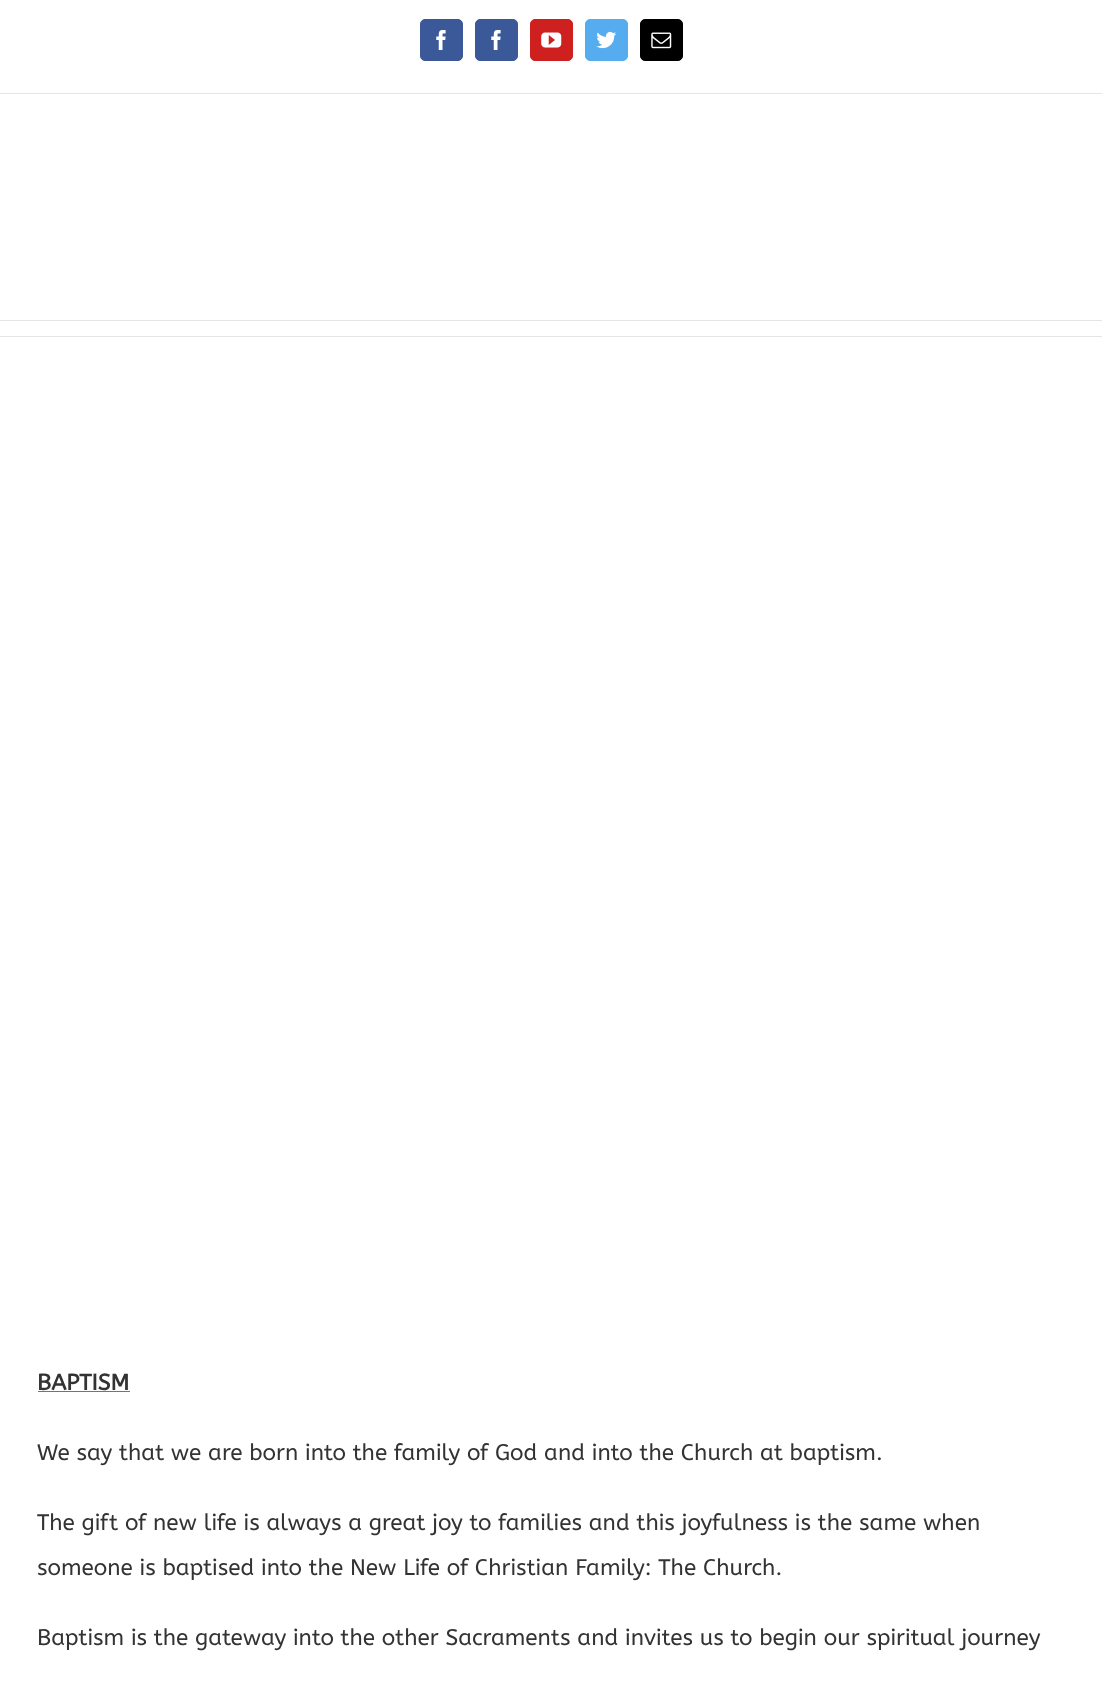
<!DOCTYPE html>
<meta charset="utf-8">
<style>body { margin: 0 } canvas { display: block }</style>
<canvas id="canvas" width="1102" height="1683"></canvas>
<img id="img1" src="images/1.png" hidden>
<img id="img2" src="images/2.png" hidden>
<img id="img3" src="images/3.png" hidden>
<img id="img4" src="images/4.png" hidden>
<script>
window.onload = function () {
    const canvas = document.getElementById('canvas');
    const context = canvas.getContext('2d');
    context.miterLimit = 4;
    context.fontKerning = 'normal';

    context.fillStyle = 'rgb(255, 255, 255)';
    context.fillRect(0, 0, 1102, 1683);
    context.fillStyle = 'rgb(229, 229, 229)';
    context.fillRect(0, 93, 1102, 1);
    context.fillStyle = 'rgb(59, 89, 152)';
    context.beginPath();
    context.roundRect(420.5, 19.5, 42, 41, 4.5);
    context.fill();
    context.strokeStyle = 'rgb(59, 89, 152)';
    context.stroke();
    context.drawImage(document.getElementById('img1'), 436, 30, 10, 20);
    context.beginPath();
    context.roundRect(475.5, 19.5, 42, 41, 4.5);
    context.fill();
    context.stroke();
    context.drawImage(document.getElementById('img1'), 491, 30, 10, 20);
    context.fillStyle = 'rgb(205, 32, 31)';
    context.beginPath();
    context.roundRect(530.5, 19.5, 42, 41, 4.5);
    context.fill();
    context.strokeStyle = 'rgb(205, 32, 31)';
    context.stroke();
    context.drawImage(document.getElementById('img2'), 541, 32, 21, 16);
    context.fillStyle = 'rgb(85, 172, 238)';
    context.beginPath();
    context.roundRect(585.5, 19.5, 42, 41, 4.5);
    context.fill();
    context.strokeStyle = 'rgb(85, 172, 238)';
    context.stroke();
    context.drawImage(document.getElementById('img3'), 596, 31, 20, 18);
    context.fillStyle = 'rgb(0, 0, 0)';
    context.beginPath();
    context.roundRect(640.5, 19.5, 42, 41, 4.5);
    context.fill();
    context.strokeStyle = 'rgb(0, 0, 0)';
    context.stroke();
    context.drawImage(document.getElementById('img4'), 651, 32, 21, 17);
    context.fillStyle = 'rgb(229, 229, 229)';
    context.fillRect(0, 320, 1102, 1);
    context.fillRect(0, 336, 1102, 1);
    context.fillStyle = 'rgb(116, 116, 116)';
    context.fillRect(38, 1391, 92, 1);
    context.font = 'bold 22.5px ABeeZee';
    context.fillStyle = 'rgb(51, 51, 51)';
    context.fillText('BAPTISM', 37, 1390);
    context.font = '22.5px ABeeZee';
    context.fillText('We say that we are born into the family of God and into the Church at baptism.', 37, 1460);
    context.fillText('The gift of new life is always a great joy to families and this joyfulness is the same when', 37, 1530);
    context.fillText('someone is baptised into the New Life of Christian Family: The Church.', 37, 1575);
    context.fillText('Baptism is the gateway into the other Sacraments and invites us to begin our spiritual journey', 37, 1645);
};
</script>
